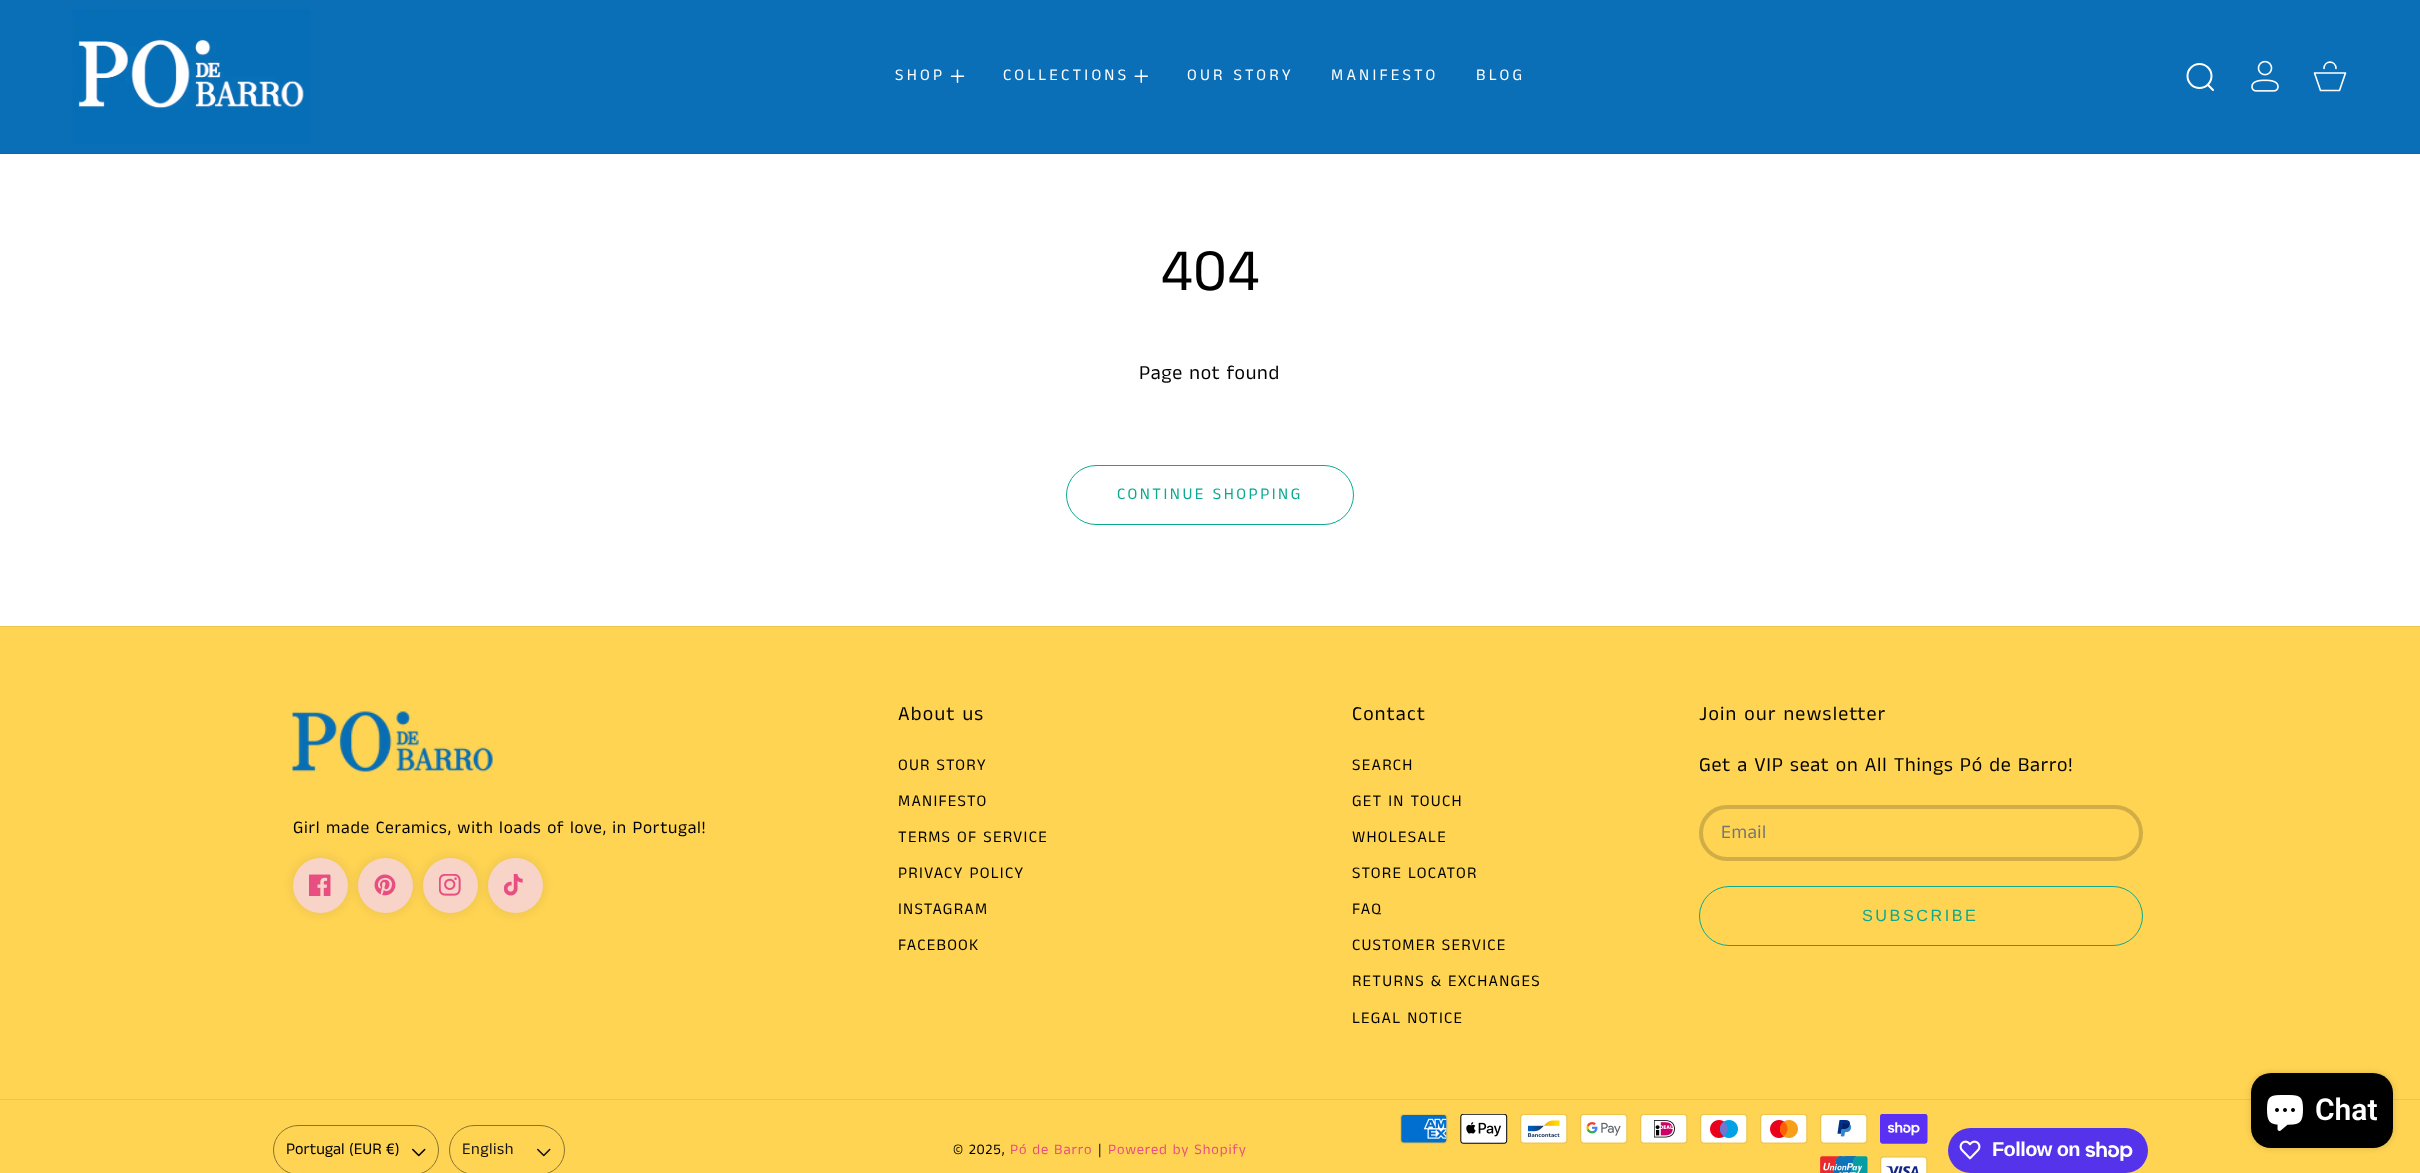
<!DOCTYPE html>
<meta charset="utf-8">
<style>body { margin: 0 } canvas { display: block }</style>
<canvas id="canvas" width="2420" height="1173"></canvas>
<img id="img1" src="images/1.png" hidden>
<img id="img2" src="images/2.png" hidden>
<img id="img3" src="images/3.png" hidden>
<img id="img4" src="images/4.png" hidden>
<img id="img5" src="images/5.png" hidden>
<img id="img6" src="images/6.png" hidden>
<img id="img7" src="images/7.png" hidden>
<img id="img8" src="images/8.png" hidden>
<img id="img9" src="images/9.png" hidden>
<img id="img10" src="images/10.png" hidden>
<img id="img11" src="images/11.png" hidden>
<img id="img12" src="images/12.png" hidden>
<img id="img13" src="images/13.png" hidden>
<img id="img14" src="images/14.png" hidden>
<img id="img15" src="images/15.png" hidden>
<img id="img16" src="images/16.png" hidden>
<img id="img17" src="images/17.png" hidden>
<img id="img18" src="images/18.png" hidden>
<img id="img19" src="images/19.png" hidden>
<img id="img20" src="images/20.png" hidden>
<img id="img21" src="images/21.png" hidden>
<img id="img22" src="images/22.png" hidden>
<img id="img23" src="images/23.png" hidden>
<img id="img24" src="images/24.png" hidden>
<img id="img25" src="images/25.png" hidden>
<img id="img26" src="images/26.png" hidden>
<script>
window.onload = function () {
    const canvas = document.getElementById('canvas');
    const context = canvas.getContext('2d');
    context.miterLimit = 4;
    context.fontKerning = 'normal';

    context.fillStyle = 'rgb(255, 255, 255)';
    context.fillRect(0, 0, 2420, 1173);
    context.fillStyle = 'rgb(11, 111, 183)';
    context.fillRect(0, 0, 2420, 153);
    context.fillStyle = 'rgb(12, 104, 170)';
    context.fillRect(0, 153, 2420, 1);
    context.drawImage(document.getElementById('img1'), 72, 9, 238, 134);
    context.drawImage(document.getElementById('img2'), 73, 34, 237, 110);
    context.drawImage(document.getElementById('img3'), 950, 69, 15, 14);
    context.drawImage(document.getElementById('img4'), 1134, 69, 14, 14);
    context.beginPath();
    context.arc(2199.5, 76, 12, 0, 2 * Math.PI);
    context.strokeStyle = 'rgb(255, 255, 255)';
    context.lineWidth = 2;
    context.stroke();
    context.beginPath();
    context.moveTo(2208, 85);
    context.lineTo(2213, 90);
    context.lineCap = 'round';
    context.lineJoin = 'round';
    context.stroke();
    context.drawImage(document.getElementById('img5'), 2251, 60, 28, 32);
    context.beginPath();
    context.moveTo(2314.5, 73);
    context.lineTo(2345.5, 73);
    context.lineTo(2339.5, 90.5);
    context.lineTo(2320.5, 90.5);
    context.closePath();
    context.moveTo(2336, 68.5);
    context.bezierCurveTo(2336, 60, 2324, 60, 2324, 68.5);
    context.lineWidth = 1.6;
    context.stroke();
    context.beginPath();
    context.roundRect(1066.5, 465.5, 287, 59, 29.5);
    context.strokeStyle = 'rgb(11, 170, 144)';
    context.lineWidth = 1;
    context.lineJoin = 'miter';
    context.stroke();
    context.fillStyle = 'rgb(255, 212, 83)';
    context.fillRect(0, 627, 2420, 546);
    context.fillStyle = 'rgb(236, 196, 78)';
    context.fillRect(0, 626, 2420, 1);
    context.drawImage(document.getElementById('img6'), 292, 711, 201, 61);
    context.fillStyle = 'rgba(18, 18, 18, 0.1)';
    context.filter = 'blur(5.5px)';
    context.beginPath();
    context.roundRect(293, 858, 55, 55, 27.5);
    context.fill();
    context.filter = 'none';
    context.fillStyle = 'rgb(247, 212, 199)';
    context.beginPath();
    context.arc(320.5, 885.5, 27.5, 0, 2 * Math.PI);
    context.fill();
    context.drawImage(document.getElementById('img7'), 309, 874, 22, 22);
    context.fillStyle = 'rgba(18, 18, 18, 0.1)';
    context.filter = 'blur(5.5px)';
    context.beginPath();
    context.roundRect(358, 858, 55, 55, 27.5);
    context.fill();
    context.filter = 'none';
    context.fillStyle = 'rgb(247, 212, 199)';
    context.beginPath();
    context.arc(385.5, 885.5, 27.5, 0, 2 * Math.PI);
    context.fill();
    context.drawImage(document.getElementById('img8'), 374, 874, 22, 22);
    context.fillStyle = 'rgba(18, 18, 18, 0.1)';
    context.filter = 'blur(5.5px)';
    context.beginPath();
    context.roundRect(423, 858, 55, 55, 27.5);
    context.fill();
    context.filter = 'none';
    context.fillStyle = 'rgb(247, 212, 199)';
    context.beginPath();
    context.arc(450.5, 885.5, 27.5, 0, 2 * Math.PI);
    context.fill();
    context.drawImage(document.getElementById('img9'), 439, 874, 22, 22);
    context.fillStyle = 'rgba(18, 18, 18, 0.1)';
    context.filter = 'blur(5.5px)';
    context.beginPath();
    context.roundRect(488, 858, 55, 55, 27.5);
    context.fill();
    context.filter = 'none';
    context.fillStyle = 'rgb(247, 212, 199)';
    context.beginPath();
    context.arc(515.5, 885.5, 27.5, 0, 2 * Math.PI);
    context.fill();
    context.drawImage(document.getElementById('img10'), 504, 874, 19, 22);
    context.beginPath();
    context.roundRect(1701, 807, 440, 52, 26);
    context.strokeStyle = 'rgb(208, 173, 70)';
    context.lineWidth = 4;
    context.stroke();
    context.beginPath();
    context.roundRect(1699.5, 886.5, 443, 59, 29.5);
    context.strokeStyle = 'rgb(11, 170, 144)';
    context.lineWidth = 1;
    context.stroke();
    context.fillStyle = 'rgb(236, 196, 78)';
    context.fillRect(0, 1099, 2420, 1);
    context.drawImage(document.getElementById('img11'), 412, 1148, 14, 9);
    context.beginPath();
    context.roundRect(273.5, 1125.5, 165, 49, 24.5);
    context.strokeStyle = 'rgb(137, 115, 51)';
    context.stroke();
    context.beginPath();
    context.roundRect(449.5, 1125.5, 115, 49, 24.5);
    context.stroke();
    context.drawImage(document.getElementById('img12'), 537, 1148, 14, 9);
    context.drawImage(document.getElementById('img13'), 1400, 1114, 48, 30);
    context.drawImage(document.getElementById('img14'), 1460, 1114, 48, 30);
    context.drawImage(document.getElementById('img15'), 1520, 1114, 48, 30);
    context.drawImage(document.getElementById('img16'), 1580, 1114, 48, 30);
    context.drawImage(document.getElementById('img17'), 1640, 1114, 48, 30);
    context.drawImage(document.getElementById('img18'), 1700, 1114, 48, 30);
    context.drawImage(document.getElementById('img19'), 1760, 1114, 48, 30);
    context.drawImage(document.getElementById('img20'), 1820, 1114, 48, 30);
    context.drawImage(document.getElementById('img21'), 1880, 1114, 48, 30);
    context.drawImage(document.getElementById('img22'), 1820, 1156, 48, 17);
    context.drawImage(document.getElementById('img23'), 1880, 1156, 48, 17);
    context.fillStyle = 'rgb(84, 51, 235)';
    context.beginPath();
    context.roundRect(1948, 1128, 200, 45, 22.5);
    context.fill();
    context.drawImage(document.getElementById('img24'), 1959, 1140, 22, 20);
    context.drawImage(document.getElementById('img25'), 2085, 1141, 48, 20);
    context.fillStyle = 'rgba(0, 0, 0, 0.15)';
    context.filter = 'blur(3px)';
    context.beginPath();
    context.roundRect(2251, 1073, 142, 75, 20);
    context.fill();
    context.filter = 'none';
    context.fillStyle = 'rgb(0, 0, 0)';
    context.beginPath();
    context.roundRect(2251, 1073, 142, 75, 20);
    context.fill();
    context.drawImage(document.getElementById('img26'), 2267, 1095, 36, 36);
    context.letterSpacing = '3.25px';
    context.font = '16.25px Anek Tamil';
    context.fillStyle = 'rgb(255, 255, 255)';
    context.fillText('SHOP', 895, 80);
    context.fillText('COLLECTIONS', 1003, 80);
    context.fillText('OUR STORY', 1187, 80);
    context.fillText('MANIFESTO', 1331, 80);
    context.fillText('BLOG', 1476, 80);
    context.letterSpacing = '0.75px';
    context.font = '60px Anek Tamil';
    context.fillStyle = 'rgb(0, 0, 0)';
    context.fillText('404', 1161, 290);
    context.font = '20px Anek Tamil';
    context.fillText('Page not found', 1139, 379);
    context.letterSpacing = '2.5px';
    context.font = '16.25px Anek Tamil';
    context.fillStyle = 'rgb(11, 170, 144)';
    context.fillText('CONTINUE SHOPPING', 1117, 499);
    context.letterSpacing = '0.75px';
    context.font = '17.5px Anek Tamil';
    context.fillStyle = 'rgb(0, 0, 0)';
    context.fillText('Girl made Ceramics, with loads of love, in Portugal!', 293, 833);
    context.letterSpacing = '1.25px';
    context.font = '20px Anek Tamil';
    context.fillText('About us', 898, 720);
    context.font = '16.25px Anek Tamil';
    context.fillText('OUR STORY', 898, 770);
    context.fillText('MANIFESTO', 898, 806);
    context.fillText('TERMS OF SERVICE', 898, 842);
    context.fillText('PRIVACY POLICY', 898, 878);
    context.fillText('INSTAGRAM', 898, 914);
    context.fillText('FACEBOOK', 898, 950);
    context.font = '20px Anek Tamil';
    context.fillText('Contact', 1352, 720);
    context.font = '16.25px Anek Tamil';
    context.fillText('SEARCH', 1352, 770);
    context.fillText('GET IN TOUCH', 1352, 806);
    context.fillText('WHOLESALE', 1352, 842);
    context.fillText('STORE LOCATOR', 1352, 878);
    context.fillText('FAQ', 1352, 914);
    context.fillText('CUSTOMER SERVICE', 1352, 950);
    context.fillText('RETURNS & EXCHANGES', 1352, 986);
    context.fillText('LEGAL NOTICE', 1352, 1023);
    context.font = '20px Anek Tamil';
    context.fillText('Join our newsletter', 1699, 720);
    context.letterSpacing = '0.75px';
    context.fillText('Get a VIP seat on All Things Pó de Barro!', 1699, 771);
    context.letterSpacing = '0.5px';
    context.font = '19px Anek Tamil';
    context.fillStyle = 'rgb(117, 117, 117)';
    context.fillText('Email', 1721, 838);
    context.letterSpacing = '2.5px';
    context.font = '16.25px Liberation Sans';
    context.fillStyle = 'rgb(11, 170, 144)';
    context.fillText('SUBSCRIBE', 1862, 921);
    context.letterSpacing = '0px';
    context.font = '16.25px Anek Tamil';
    context.fillStyle = 'rgb(0, 0, 0)';
    context.fillText('Portugal (EUR €)', 286, 1154);
    context.letterSpacing = '0.5px';
    context.fillStyle = 'rgb(18, 18, 18)';
    context.fillText('English', 462, 1154);
    context.letterSpacing = '0.9px';
    context.font = '14.5px Anek Tamil';
    context.fillStyle = 'rgb(0, 0, 0)';
    context.fillText('© 2025,', 953, 1154);
    context.fillStyle = 'rgb(233, 78, 130)';
    context.fillText('Pó de Barro', 1010, 1154);
    context.fillStyle = 'rgb(0, 0, 0)';
    context.fillText('|', 1098, 1154);
    context.fillStyle = 'rgb(233, 78, 130)';
    context.fillText('Powered by Shopify', 1108, 1154);
    context.letterSpacing = '-0.6px';
    context.font = 'bold 20px Liberation Sans';
    context.fillStyle = 'rgb(255, 255, 255)';
    context.fillText('Follow on', 1992, 1156);
    context.letterSpacing = '0px';
    context.font = '600 30px Roboto';
    context.fillText('Chat', 2315, 1120);
};
</script>
